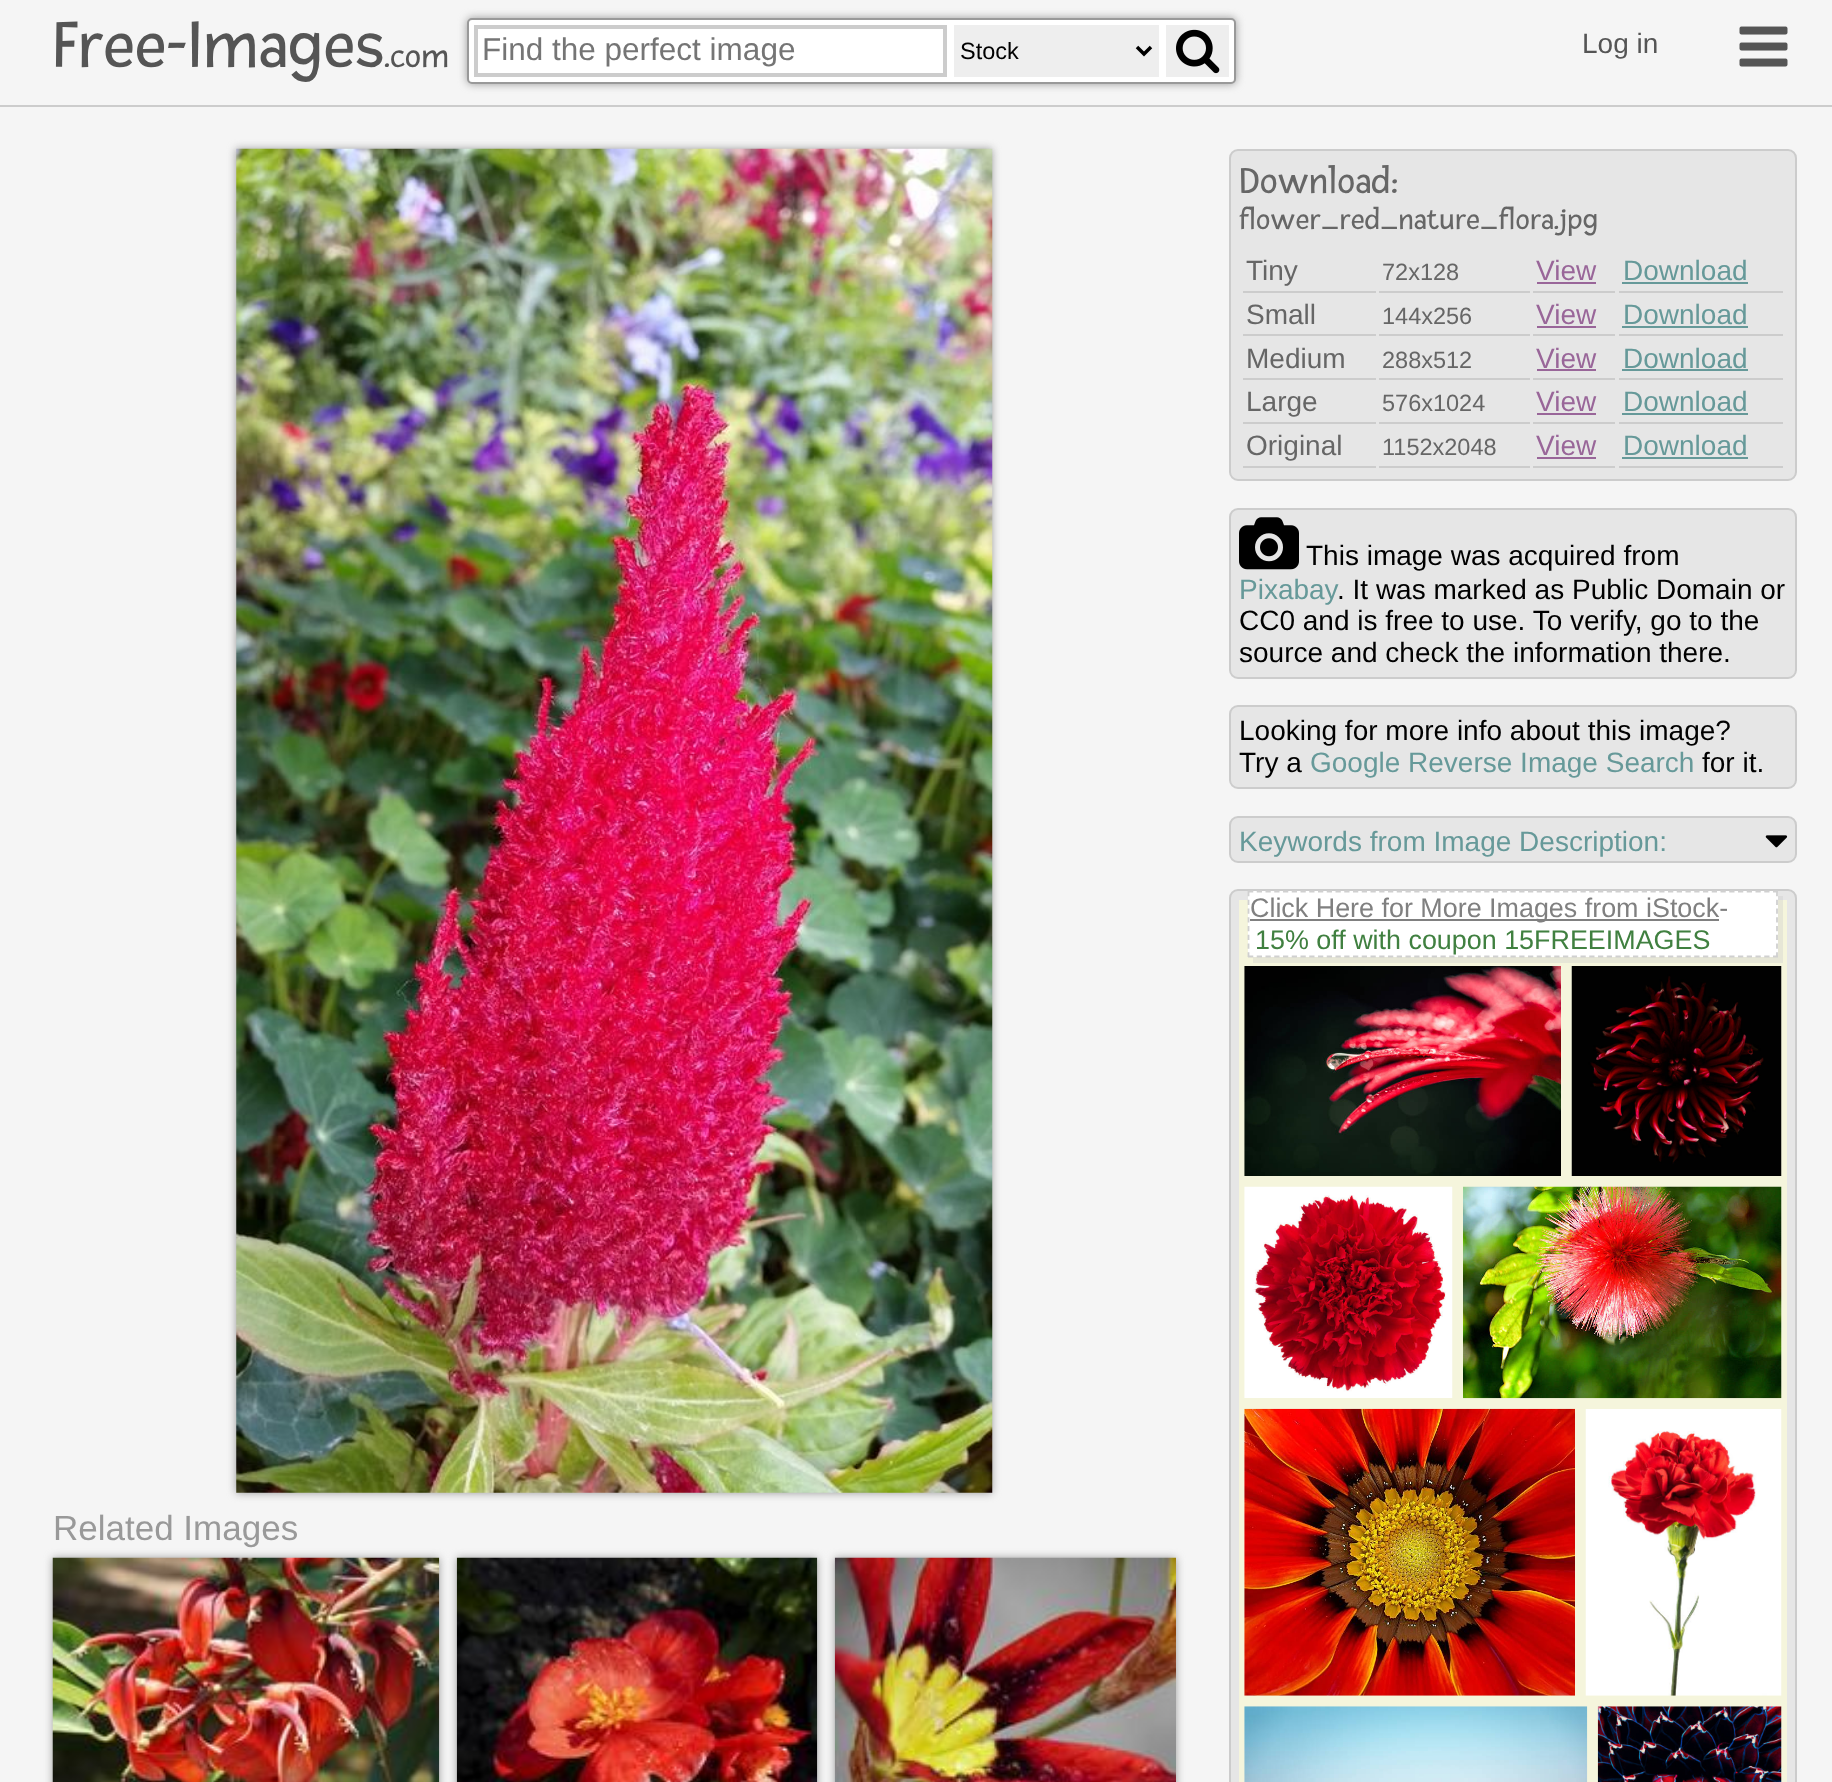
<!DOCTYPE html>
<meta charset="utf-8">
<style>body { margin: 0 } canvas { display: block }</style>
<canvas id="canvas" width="1832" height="1782"></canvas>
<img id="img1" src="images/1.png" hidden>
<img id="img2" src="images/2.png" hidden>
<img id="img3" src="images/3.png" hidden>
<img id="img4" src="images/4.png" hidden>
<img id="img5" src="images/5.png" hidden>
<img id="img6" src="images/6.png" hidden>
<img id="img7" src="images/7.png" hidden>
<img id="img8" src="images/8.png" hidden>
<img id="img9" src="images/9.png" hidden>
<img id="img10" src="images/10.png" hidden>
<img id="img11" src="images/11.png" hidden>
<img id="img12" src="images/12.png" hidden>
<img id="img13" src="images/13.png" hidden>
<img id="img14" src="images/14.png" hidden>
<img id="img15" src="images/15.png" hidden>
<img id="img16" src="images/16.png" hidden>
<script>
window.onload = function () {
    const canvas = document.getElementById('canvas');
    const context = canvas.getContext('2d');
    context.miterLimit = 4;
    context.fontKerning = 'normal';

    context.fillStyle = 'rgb(245, 245, 245)';
    context.fillRect(0, 0, 1832, 1782);
    context.fillStyle = 'rgb(204, 204, 204)';
    context.fillRect(0, 105, 1832, 2);
    context.fillStyle = 'rgb(153, 153, 153)';
    context.filter = 'blur(4.5px)';
    context.beginPath();
    context.roundRect(467, 18, 769, 66, 5);
    context.fill();
    context.filter = 'none';
    context.fillStyle = 'rgb(255, 255, 255)';
    context.beginPath();
    context.roundRect(468, 19, 767, 64, 4);
    context.fill();
    context.strokeStyle = 'rgb(153, 153, 153)';
    context.lineWidth = 2;
    context.stroke();
    context.strokeStyle = 'rgb(204, 204, 204)';
    context.lineWidth = 4;
    context.strokeRect(476, 27, 469, 48);
    context.fillStyle = 'rgb(238, 238, 238)';
    context.fillRect(954, 25, 205, 52);
    context.beginPath();
    context.moveTo(1137, 47);
    context.lineTo(1144, 54);
    context.lineTo(1151, 47);
    context.strokeStyle = 'rgb(0, 0, 0)';
    context.lineWidth = 3.5;
    context.stroke();
    context.fillRect(1166, 25, 63, 52);
    context.drawImage(document.getElementById('img1'), 1176, 29, 44, 45);
    context.drawImage(document.getElementById('img2'), 1739, 26, 49, 41);
    context.fillStyle = 'rgb(230, 230, 230)';
    context.beginPath();
    context.roundRect(1230, 150, 566, 330, 8);
    context.fill();
    context.strokeStyle = 'rgb(204, 204, 204)';
    context.lineWidth = 2;
    context.stroke();
    context.fillStyle = 'rgb(204, 204, 204)';
    context.fillRect(1243, 291, 133, 2);
    context.fillRect(1379, 291, 151, 2);
    context.fillRect(1533, 291, 82, 2);
    context.fillStyle = 'rgb(153, 102, 153)';
    context.fillRect(1537, 282, 59, 2);
    context.fillStyle = 'rgb(204, 204, 204)';
    context.fillRect(1619, 291, 164, 2);
    context.fillStyle = 'rgb(102, 153, 153)';
    context.fillRect(1622, 282, 126, 2);
    context.fillStyle = 'rgb(204, 204, 204)';
    context.fillRect(1243, 334, 133, 2);
    context.fillRect(1379, 334, 151, 2);
    context.fillRect(1533, 334, 82, 2);
    context.fillStyle = 'rgb(153, 102, 153)';
    context.fillRect(1537, 326, 59, 2);
    context.fillStyle = 'rgb(204, 204, 204)';
    context.fillRect(1619, 334, 164, 2);
    context.fillStyle = 'rgb(102, 153, 153)';
    context.fillRect(1622, 326, 126, 2);
    context.fillStyle = 'rgb(204, 204, 204)';
    context.fillRect(1243, 378, 133, 2);
    context.fillRect(1379, 378, 151, 2);
    context.fillRect(1533, 378, 82, 2);
    context.fillStyle = 'rgb(153, 102, 153)';
    context.fillRect(1537, 369, 59, 2);
    context.fillStyle = 'rgb(204, 204, 204)';
    context.fillRect(1619, 378, 164, 2);
    context.fillStyle = 'rgb(102, 153, 153)';
    context.fillRect(1622, 369, 126, 2);
    context.fillStyle = 'rgb(204, 204, 204)';
    context.fillRect(1243, 422, 133, 2);
    context.fillRect(1379, 422, 151, 2);
    context.fillRect(1533, 422, 82, 2);
    context.fillStyle = 'rgb(153, 102, 153)';
    context.fillRect(1537, 413, 59, 2);
    context.fillStyle = 'rgb(204, 204, 204)';
    context.fillRect(1619, 422, 164, 2);
    context.fillStyle = 'rgb(102, 153, 153)';
    context.fillRect(1622, 413, 126, 2);
    context.fillStyle = 'rgb(204, 204, 204)';
    context.fillRect(1243, 466, 133, 2);
    context.fillRect(1379, 466, 151, 2);
    context.fillRect(1533, 466, 82, 2);
    context.fillStyle = 'rgb(153, 102, 153)';
    context.fillRect(1537, 457, 59, 2);
    context.fillStyle = 'rgb(204, 204, 204)';
    context.fillRect(1619, 466, 164, 2);
    context.fillStyle = 'rgb(102, 153, 153)';
    context.fillRect(1622, 457, 126, 2);
    context.fillStyle = 'rgb(230, 230, 230)';
    context.beginPath();
    context.roundRect(1230, 509, 566, 169, 8);
    context.fill();
    context.stroke();
    context.drawImage(document.getElementById('img3'), 1239, 517, 60, 53);
    context.beginPath();
    context.roundRect(1230, 706, 566, 82, 8);
    context.fill();
    context.stroke();
    context.beginPath();
    context.roundRect(1230, 817, 566, 45, 8);
    context.fill();
    context.stroke();
    context.drawImage(document.getElementById('img4'), 1765, 835, 23, 13);
    context.beginPath();
    context.roundRect(1230, 890, 566, 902, 8);
    context.fill();
    context.stroke();
    context.fillStyle = 'rgb(245, 245, 220)';
    context.fillRect(1239, 900, 548, 882);
    context.fillStyle = 'rgba(204, 204, 204, 0.38)';
    context.beginPath();
    context.moveTo(1253, 957);
    context.lineTo(1253, 963);
    context.lineTo(1783, 963);
    context.lineTo(1783, 896);
    context.lineTo(1778, 896);
    context.lineTo(1778, 957);
    context.closePath();
    context.fill();
    context.fillStyle = 'rgb(255, 255, 255)';
    context.fillRect(1248, 891, 530, 66);
    context.beginPath();
    context.moveTo(1248, 891.5);
    context.lineTo(1778, 891.5);
    context.strokeStyle = 'rgb(208, 208, 208)';
    context.lineWidth = 1.8;
    context.setLineDash([5.25, 3.5]);
    context.stroke();
    context.beginPath();
    context.moveTo(1777, 891);
    context.lineTo(1777, 957);
    context.stroke();
    context.beginPath();
    context.moveTo(1248, 956.5);
    context.lineTo(1778, 956.5);
    context.stroke();
    context.beginPath();
    context.moveTo(1248.5, 891);
    context.lineTo(1248.5, 957);
    context.stroke();
    context.fillStyle = 'rgb(128, 128, 128)';
    context.fillRect(1250, 919, 469, 2);
    context.drawImage(document.getElementById('img5'), 1244, 966, 317, 210);
    context.drawImage(document.getElementById('img6'), 1571, 966, 211, 210);
    context.drawImage(document.getElementById('img7'), 1244, 1186, 209, 212);
    context.drawImage(document.getElementById('img8'), 1463, 1186, 319, 213);
    context.drawImage(document.getElementById('img9'), 1244, 1408, 331, 288);
    context.drawImage(document.getElementById('img10'), 1585, 1409, 197, 287);
    context.drawImage(document.getElementById('img11'), 1244, 1706, 344, 76);
    context.drawImage(document.getElementById('img12'), 1597, 1706, 185, 76);
    context.fillStyle = 'rgb(153, 153, 153)';
    context.filter = 'blur(4.5px)';
    context.beginPath();
    context.rect(236, 149, 756, 1344);
    context.fill();
    context.filter = 'none';
    context.drawImage(document.getElementById('img13'), 236, 148, 757, 1345);
    context.filter = 'blur(4.5px)';
    context.beginPath();
    context.rect(53, 1558, 386, 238);
    context.fill();
    context.filter = 'none';
    context.drawImage(document.getElementById('img14'), 52, 1557, 388, 225);
    context.filter = 'blur(4.5px)';
    context.beginPath();
    context.rect(457, 1558, 360, 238);
    context.fill();
    context.filter = 'none';
    context.drawImage(document.getElementById('img15'), 456, 1557, 362, 225);
    context.filter = 'blur(4.5px)';
    context.beginPath();
    context.rect(835, 1558, 341, 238);
    context.fill();
    context.filter = 'none';
    context.drawImage(document.getElementById('img16'), 834, 1557, 342, 225);
    context.font = '70px Fresca';
    context.fillStyle = 'rgb(85, 85, 85)';
    context.fillText('Free-Images', 53, 67);
    context.font = '35px Fresca';
    context.fillText('.com', 384, 67);
    context.font = '31.5px Liberation Sans';
    context.fillStyle = 'rgb(117, 117, 117)';
    context.fillText('Find the perfect image', 482, 60);
    context.font = '23.5px Liberation Sans';
    context.fillStyle = 'rgb(0, 0, 0)';
    context.fillText('Stock', 960, 59);
    context.font = '28px Liberation Sans';
    context.fillStyle = 'rgb(85, 85, 85)';
    context.fillText('Log in', 1582, 53);
    context.font = '38.5px Fresca';
    context.fillStyle = 'rgb(102, 102, 102)';
    context.fillText('Download:', 1239, 193);
    context.font = '30.75px Fresca';
    context.fillText('flower_red_nature_flora.jpg', 1239, 229);
    context.font = '28px Liberation Sans';
    context.fillText('Tiny', 1246, 280);
    context.font = '23.5px Liberation Sans';
    context.fillText('72x128', 1382, 280);
    context.font = '28px Liberation Sans';
    context.fillStyle = 'rgb(153, 102, 153)';
    context.fillText('View', 1536, 280);
    context.fillStyle = 'rgb(102, 153, 153)';
    context.fillText('Download', 1623, 280);
    context.fillStyle = 'rgb(102, 102, 102)';
    context.fillText('Small', 1246, 324);
    context.font = '23.5px Liberation Sans';
    context.fillText('144x256', 1382, 324);
    context.font = '28px Liberation Sans';
    context.fillStyle = 'rgb(153, 102, 153)';
    context.fillText('View', 1536, 324);
    context.fillStyle = 'rgb(102, 153, 153)';
    context.fillText('Download', 1623, 324);
    context.fillStyle = 'rgb(102, 102, 102)';
    context.fillText('Medium', 1246, 368);
    context.font = '23.5px Liberation Sans';
    context.fillText('288x512', 1382, 368);
    context.font = '28px Liberation Sans';
    context.fillStyle = 'rgb(153, 102, 153)';
    context.fillText('View', 1536, 368);
    context.fillStyle = 'rgb(102, 153, 153)';
    context.fillText('Download', 1623, 368);
    context.fillStyle = 'rgb(102, 102, 102)';
    context.fillText('Large', 1246, 411);
    context.font = '23.5px Liberation Sans';
    context.fillText('576x1024', 1382, 411);
    context.font = '28px Liberation Sans';
    context.fillStyle = 'rgb(153, 102, 153)';
    context.fillText('View', 1536, 411);
    context.fillStyle = 'rgb(102, 153, 153)';
    context.fillText('Download', 1623, 411);
    context.fillStyle = 'rgb(102, 102, 102)';
    context.fillText('Original', 1246, 455);
    context.font = '23.5px Liberation Sans';
    context.fillText('1152x2048', 1382, 455);
    context.font = '28px Liberation Sans';
    context.fillStyle = 'rgb(153, 102, 153)';
    context.fillText('View', 1536, 455);
    context.fillStyle = 'rgb(102, 153, 153)';
    context.fillText('Download', 1623, 455);
    context.fillStyle = 'rgb(0, 0, 0)';
    context.fillText('This image was acquired from', 1306, 565);
    context.fillStyle = 'rgb(102, 153, 153)';
    context.fillText('Pixabay', 1239, 599);
    context.fillStyle = 'rgb(0, 0, 0)';
    context.fillText('. It was marked as Public Domain or', 1337, 599);
    context.fillText('CC0 and is free to use. To verify, go to the', 1239, 630);
    context.fillText('source and check the information there.', 1239, 662);
    context.fillText('Looking for more info about this image?', 1239, 740);
    context.fillText('Try a', 1239, 772);
    context.fillStyle = 'rgb(102, 153, 153)';
    context.fillText('Google Reverse Image Search', 1310, 772);
    context.fillStyle = 'rgb(0, 0, 0)';
    context.fillText('for it.', 1702, 772);
    context.fillStyle = 'rgb(102, 153, 153)';
    context.fillText('Keywords from Image Description:', 1239, 851);
    context.font = '26.9px Liberation Sans';
    context.fillStyle = 'rgb(128, 128, 128)';
    context.fillText('Click Here for More Images from iStock-', 1250, 917);
    context.fillStyle = 'rgb(64, 128, 64)';
    context.fillText('15% off with coupon 15FREEIMAGES', 1255, 949);
    context.font = '35px Liberation Sans';
    context.fillStyle = 'rgb(153, 153, 153)';
    context.fillText('Related Images', 53, 1540);
};
</script>
